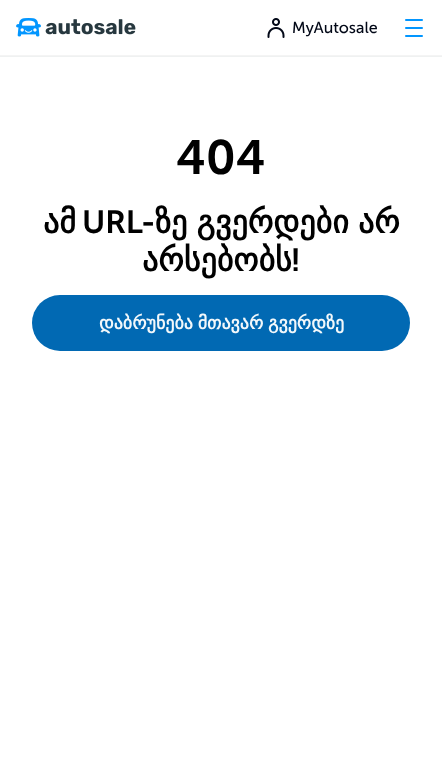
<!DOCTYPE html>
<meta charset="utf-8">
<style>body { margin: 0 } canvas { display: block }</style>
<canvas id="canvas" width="442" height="771"></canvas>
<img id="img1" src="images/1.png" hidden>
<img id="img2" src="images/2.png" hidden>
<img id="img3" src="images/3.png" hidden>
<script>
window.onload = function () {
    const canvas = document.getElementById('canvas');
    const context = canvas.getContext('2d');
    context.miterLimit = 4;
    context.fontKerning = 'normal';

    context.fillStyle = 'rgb(255, 255, 255)';
    context.fillRect(0, 0, 442, 771);
    context.fillStyle = 'rgb(239, 241, 241)';
    context.fillRect(0, 56, 442, 1);
    context.fillStyle = 'rgb(244, 244, 244)';
    context.fillRect(0, 55, 442, 1);
    context.drawImage(document.getElementById('img1'), 16, 18, 120, 19);
    context.drawImage(document.getElementById('img2'), 267, 18, 18, 20);
    context.drawImage(document.getElementById('img3'), 405, 19, 18, 18);
    context.fillStyle = 'rgb(1, 105, 179)';
    context.beginPath();
    context.roundRect(32, 295, 378, 56, 28);
    context.fill();
    context.font = '16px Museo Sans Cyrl';
    context.fillStyle = 'rgb(2, 8, 23)';
    context.fillText('MyAutosale', 292, 33);
    context.font = '600 48px Museo Sans Cyrl';
    context.fillStyle = 'rgb(0, 0, 0)';
    context.fillText('404', 176, 174);
    context.font = 'bold 32px DejaVu Sans';
    context.fillText('ამ', 43, 233);
    context.font = '600 32px Museo Sans Cyrl';
    context.fillText('URL-', 82, 233);
    context.wordSpacing = '-1px';
    context.font = 'bold 32px DejaVu Sans';
    context.fillText('ზე გვერდები არ', 155, 233);
    context.wordSpacing = '0px';
    context.fillText('არსებობს', 142, 271);
    context.font = '600 32px Museo Sans Cyrl';
    context.fillText('!', 291, 271);
    context.wordSpacing = '-1px';
    context.font = 'bold 18px DejaVu Sans';
    context.fillStyle = 'rgb(242, 248, 251)';
    context.fillText('დაბრუნება მთავარ გვერდზე', 99, 329);
};
</script>
